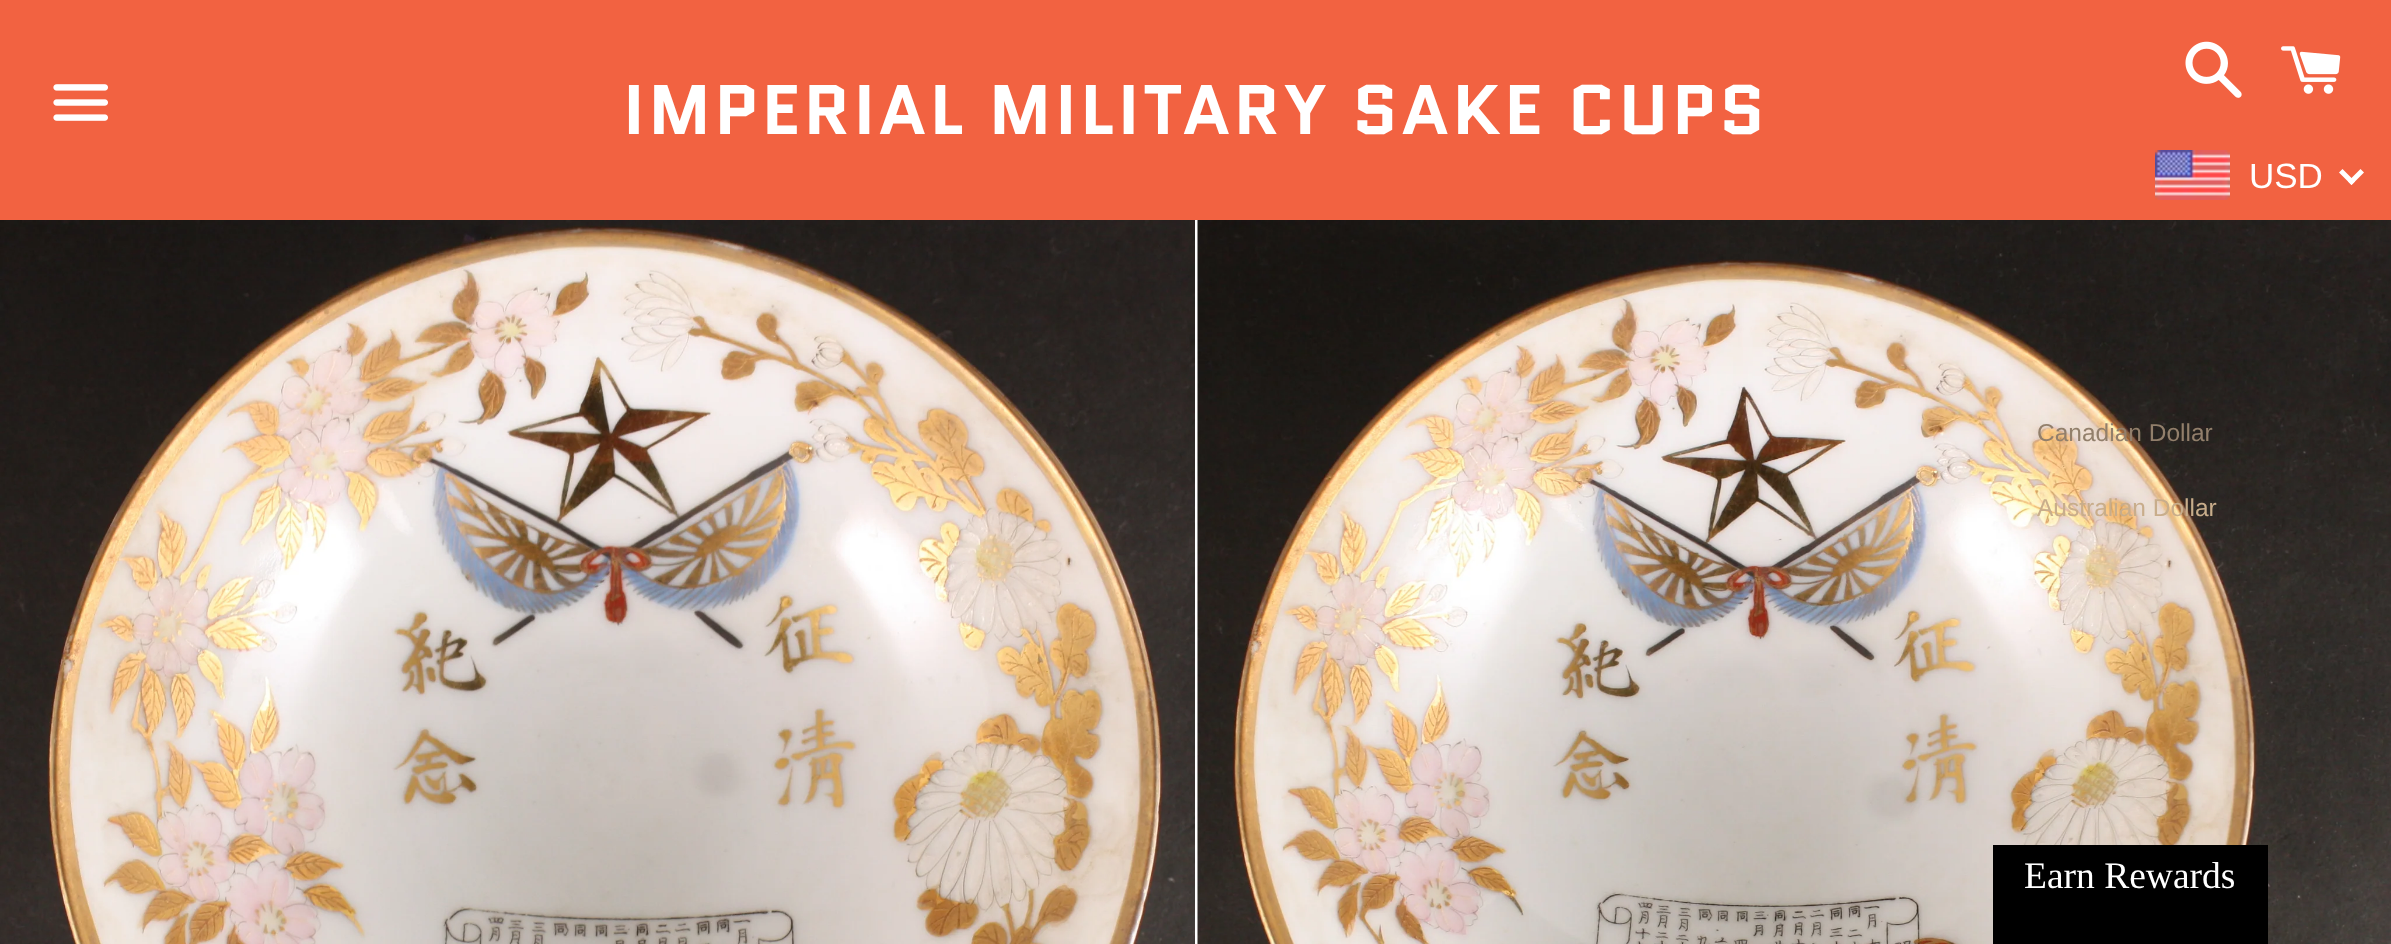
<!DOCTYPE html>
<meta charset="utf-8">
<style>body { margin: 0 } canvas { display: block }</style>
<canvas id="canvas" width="2391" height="944"></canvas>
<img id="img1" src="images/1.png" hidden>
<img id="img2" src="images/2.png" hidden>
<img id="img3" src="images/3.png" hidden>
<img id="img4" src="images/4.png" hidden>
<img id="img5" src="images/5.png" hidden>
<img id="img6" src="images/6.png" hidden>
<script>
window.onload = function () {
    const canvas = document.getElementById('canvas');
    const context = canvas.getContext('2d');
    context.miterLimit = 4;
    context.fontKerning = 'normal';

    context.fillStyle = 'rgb(255, 255, 255)';
    context.fillRect(0, 0, 2391, 944);
    context.fillStyle = 'rgb(242, 98, 65)';
    context.fillRect(0, 0, 2391, 220);
    context.drawImage(document.getElementById('img1'), 53, 84, 55, 37);
    context.drawImage(document.getElementById('img2'), 2185, 41, 57, 57);
    context.drawImage(document.getElementById('img3'), 2281, 46, 60, 48);
    context.drawImage(document.getElementById('img4'), 2155, 150, 75, 50);
    context.fillStyle = 'rgb(255, 255, 255)';
    context.beginPath();
    context.moveTo(2360.5, 169);
    context.lineTo(2364, 172.5);
    context.lineTo(2351.5, 185);
    context.lineTo(2348, 181.5);
    context.closePath();
    context.fill();
    context.beginPath();
    context.moveTo(2342.5, 169);
    context.lineTo(2355, 181.5);
    context.lineTo(2351.5, 185);
    context.lineTo(2339, 172.5);
    context.closePath();
    context.fill();
    context.drawImage(document.getElementById('img5'), 0, 220, 1195, 724);
    context.drawImage(document.getElementById('img6'), 1197, 220, 1194, 724);
    context.fillStyle = 'rgb(0, 0, 0)';
    context.fillRect(1993, 845, 275, 99);
    context.letterSpacing = '3.5px';
    context.font = 'bold 70px Quantico';
    context.fillStyle = 'rgb(255, 255, 255)';
    context.fillText('IMPERIAL MILITARY SAKE CUPS', 623, 134);
    context.letterSpacing = '0px';
    context.font = '35px Liberation Sans';
    context.fillText('USD', 2249, 188);
    context.font = '24.5px Liberation Sans';
    context.fillStyle = 'rgb(146, 127, 107)';
    context.fillText('Canadian Dollar', 2037, 441);
    context.fillStyle = 'rgb(200, 173, 139)';
    context.fillText('Australian Dollar', 2037, 516);
    context.font = '37.5px Liberation Serif';
    context.fillStyle = 'rgb(255, 255, 255)';
    context.fillText('Earn Rewards', 2024, 888);
};
</script>
